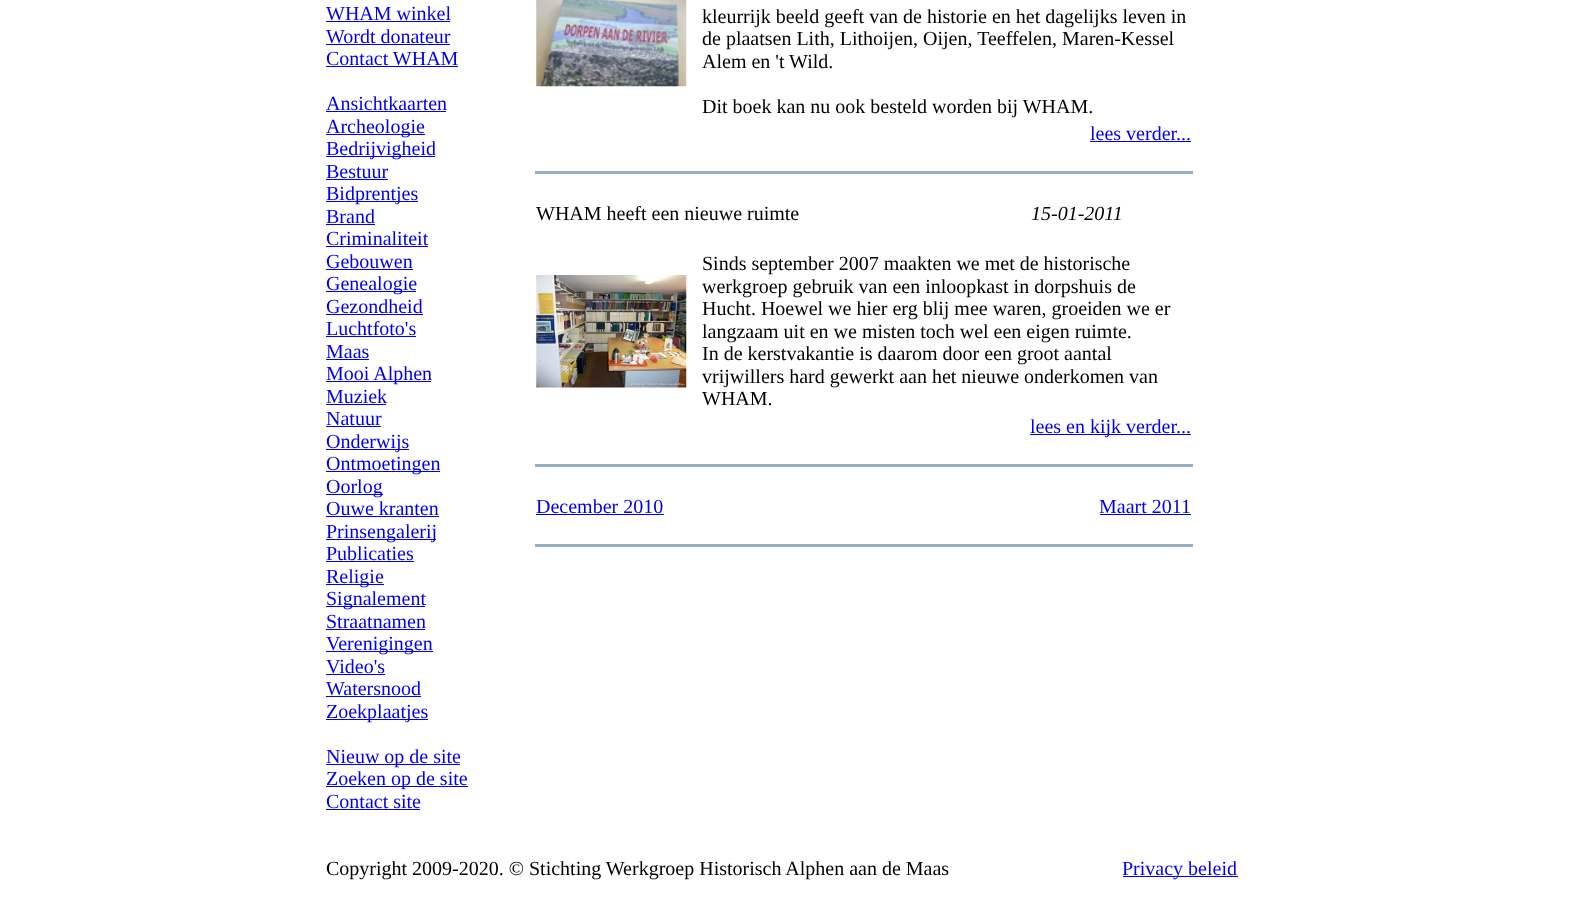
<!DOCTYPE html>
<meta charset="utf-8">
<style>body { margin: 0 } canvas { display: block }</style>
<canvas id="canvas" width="1594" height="902"></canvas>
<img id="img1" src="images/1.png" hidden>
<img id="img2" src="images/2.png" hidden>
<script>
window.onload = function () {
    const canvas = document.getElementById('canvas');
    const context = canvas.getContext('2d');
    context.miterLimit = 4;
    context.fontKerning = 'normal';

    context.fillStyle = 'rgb(255, 255, 255)';
    context.fillRect(0, 0, 1594, 902);
    context.fillStyle = 'rgb(0, 0, 238)';
    context.fillRect(326, 21, 124, 1);
    context.fillRect(326, 44, 124, 1);
    context.fillRect(326, 66, 132, 1);
    context.fillRect(326, 111, 120, 1);
    context.fillRect(326, 134, 99, 1);
    context.fillRect(326, 156, 109, 1);
    context.fillRect(326, 179, 62, 1);
    context.fillRect(326, 201, 92, 1);
    context.fillRect(326, 224, 49, 1);
    context.fillRect(326, 246, 102, 1);
    context.fillRect(326, 269, 87, 1);
    context.fillRect(326, 291, 90, 1);
    context.fillRect(326, 314, 97, 1);
    context.fillRect(326, 336, 90, 1);
    context.fillRect(326, 359, 43, 1);
    context.fillRect(326, 381, 105, 1);
    context.fillRect(326, 404, 60, 1);
    context.fillRect(326, 426, 55, 1);
    context.fillRect(326, 449, 83, 1);
    context.fillRect(326, 471, 114, 1);
    context.fillRect(326, 494, 57, 1);
    context.fillRect(326, 516, 113, 1);
    context.fillRect(326, 539, 110, 1);
    context.fillRect(326, 561, 88, 1);
    context.fillRect(326, 584, 58, 1);
    context.fillRect(326, 606, 99, 1);
    context.fillRect(326, 629, 99, 1);
    context.fillRect(326, 651, 107, 1);
    context.fillRect(326, 674, 59, 1);
    context.fillRect(326, 696, 95, 1);
    context.fillRect(326, 719, 102, 1);
    context.fillRect(326, 764, 134, 1);
    context.fillRect(326, 786, 142, 1);
    context.fillRect(326, 809, 94, 1);
    context.drawImage(document.getElementById('img1'), 536, 0, 151, 87);
    context.fillRect(1090, 141, 101, 1);
    context.fillStyle = 'rgb(148, 175, 199)';
    context.fillRect(535, 171, 658, 3);
    context.drawImage(document.getElementById('img2'), 536, 275, 151, 113);
    context.fillStyle = 'rgb(0, 0, 238)';
    context.fillRect(1030, 434, 161, 1);
    context.fillStyle = 'rgb(148, 175, 199)';
    context.fillRect(535, 464, 658, 3);
    context.fillStyle = 'rgb(0, 0, 238)';
    context.fillRect(536, 514, 128, 1);
    context.fillRect(1100, 514, 91, 1);
    context.fillStyle = 'rgb(148, 175, 199)';
    context.fillRect(535, 544, 658, 3);
    context.fillStyle = 'rgb(0, 0, 238)';
    context.fillRect(1123, 876, 115, 1);
    context.font = '20px Liberation Serif';
    context.fillText('WHAM winkel', 326, 20);
    context.fillText('Wordt donateur', 326, 43);
    context.fillText('Contact WHAM', 326, 65);
    context.fillText('Ansichtkaarten', 326, 110);
    context.fillText('Archeologie', 326, 133);
    context.fillText('Bedrijvigheid', 326, 155);
    context.fillText('Bestuur', 326, 178);
    context.fillText('Bidprentjes', 326, 200);
    context.fillText('Brand', 326, 223);
    context.fillText('Criminaliteit', 326, 245);
    context.fillText('Gebouwen', 326, 268);
    context.fillText('Genealogie', 326, 290);
    context.fillText('Gezondheid', 326, 313);
    context.fillText('Luchtfoto\'s', 326, 335);
    context.fillText('Maas', 326, 358);
    context.fillText('Mooi Alphen', 326, 380);
    context.fillText('Muziek', 326, 403);
    context.fillText('Natuur', 326, 425);
    context.fillText('Onderwijs', 326, 448);
    context.fillText('Ontmoetingen', 326, 470);
    context.fillText('Oorlog', 326, 493);
    context.fillText('Ouwe kranten', 326, 515);
    context.fillText('Prinsengalerij', 326, 538);
    context.fillText('Publicaties', 326, 560);
    context.fillText('Religie', 326, 583);
    context.fillText('Signalement', 326, 605);
    context.fillText('Straatnamen', 326, 628);
    context.fillText('Verenigingen', 326, 650);
    context.fillText('Video\'s', 326, 673);
    context.fillText('Watersnood', 326, 695);
    context.fillText('Zoekplaatjes', 326, 718);
    context.fillText('Nieuw op de site', 326, 763);
    context.fillText('Zoeken op de site', 326, 785);
    context.fillText('Contact site', 326, 808);
    context.fillStyle = 'rgb(0, 0, 0)';
    context.fillText('kleurrijk beeld geeft van de historie en het dagelijks leven in', 702, 23);
    context.fillText('de plaatsen Lith, Lithoijen, Oijen, Teeffelen, Maren-Kessel', 702, 45);
    context.fillText('Alem en \'t Wild.', 702, 68);
    context.fillText('Dit boek kan nu ook besteld worden bij WHAM.', 702, 113);
    context.fillStyle = 'rgb(0, 0, 238)';
    context.fillText('lees verder...', 1090, 140);
    context.fillStyle = 'rgb(0, 0, 0)';
    context.fillText('WHAM heeft een nieuwe ruimte', 536, 220);
    context.font = 'italic 20px Liberation Serif';
    context.fillText('15-01-2011', 1031, 220);
    context.font = '20px Liberation Serif';
    context.fillText('Sinds september 2007 maakten we met de historische', 702, 270);
    context.fillText('werkgroep gebruik van een inloopkast in dorpshuis de', 702, 293);
    context.fillText('Hucht. Hoewel we hier erg blij mee waren, groeiden we er', 702, 315);
    context.fillText('langzaam uit en we misten toch wel een eigen ruimte.', 702, 338);
    context.fillText('In de kerstvakantie is daarom door een groot aantal', 702, 360);
    context.fillText('vrijwillers hard gewerkt aan het nieuwe onderkomen van', 702, 383);
    context.fillText('WHAM.', 702, 405);
    context.fillStyle = 'rgb(0, 0, 238)';
    context.fillText('lees en kijk verder...', 1030, 433);
    context.fillText('December 2010', 536, 513);
    context.fillText('Maart 2011', 1099, 513);
    context.fillStyle = 'rgb(0, 0, 0)';
    context.fillText('Copyright 2009-2020. © Stichting Werkgroep Historisch Alphen aan de Maas', 326, 875);
    context.fillStyle = 'rgb(0, 0, 238)';
    context.fillText('Privacy beleid', 1122, 875);
};
</script>
